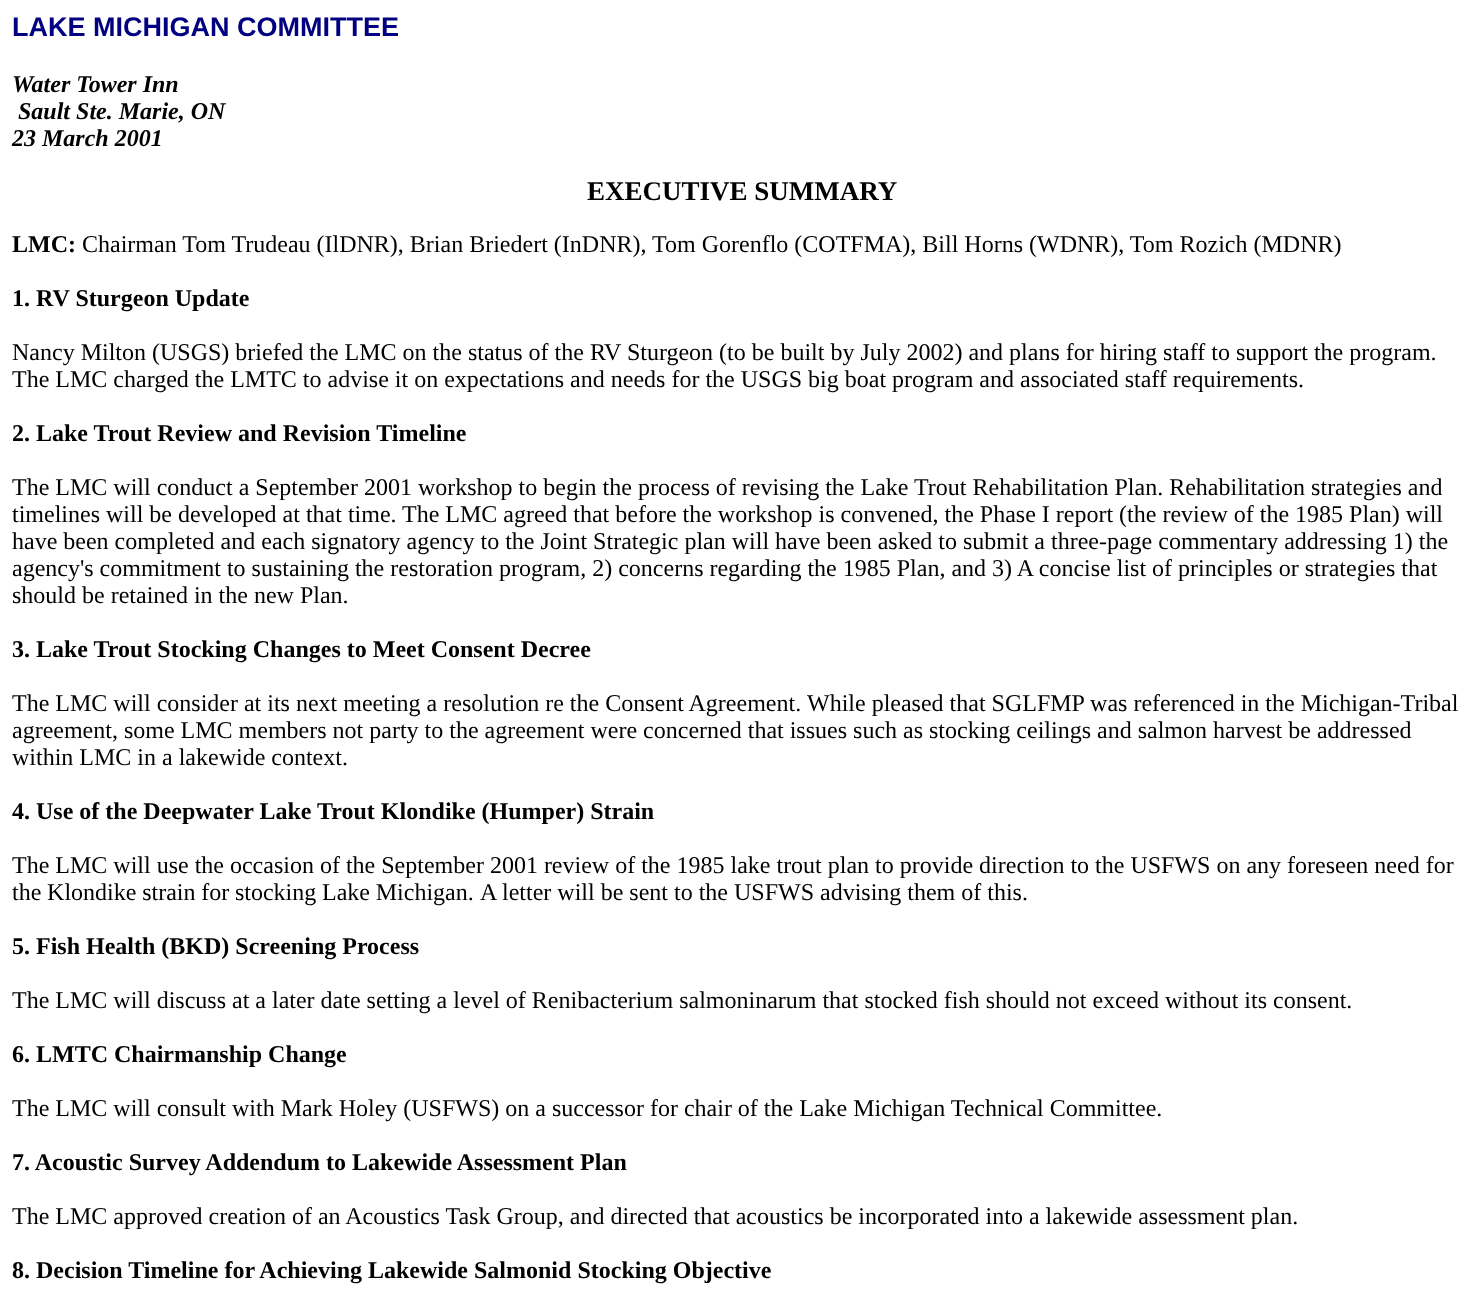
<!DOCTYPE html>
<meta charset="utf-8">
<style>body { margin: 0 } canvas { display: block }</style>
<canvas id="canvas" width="1484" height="1292"></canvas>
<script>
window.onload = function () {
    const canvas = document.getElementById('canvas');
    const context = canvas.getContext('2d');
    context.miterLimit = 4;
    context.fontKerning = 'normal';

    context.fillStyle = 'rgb(255, 255, 255)';
    context.fillRect(0, 0, 1484, 1292);
    context.font = 'bold 27px Liberation Sans';
    context.fillStyle = 'rgb(0, 0, 128)';
    context.fillText('LAKE MICHIGAN COMMITTEE', 12, 36);
    context.font = 'italic bold 24px Liberation Serif';
    context.fillStyle = 'rgb(0, 0, 0)';
    context.fillText('Water Tower Inn', 12, 92);
    context.fillText('Sault Ste. Marie, ON', 18, 119);
    context.fillText('23 March 2001', 12, 146);
    context.font = 'bold 27px Liberation Serif';
    context.fillText('EXECUTIVE SUMMARY', 587, 200);
    context.font = 'bold 24px Liberation Serif';
    context.fillText('LMC:', 12, 252);
    context.font = '24px Liberation Serif';
    context.fillText('Chairman Tom Trudeau (IlDNR), Brian Briedert (InDNR), Tom Gorenflo (COTFMA), Bill Horns (WDNR), Tom Rozich (MDNR)', 82, 252);
    context.font = 'bold 24px Liberation Serif';
    context.fillText('1. RV Sturgeon Update', 12, 306);
    context.font = '24px Liberation Serif';
    context.fillText('Nancy Milton (USGS) briefed the LMC on the status of the RV Sturgeon (to be built by July 2002) and plans for hiring staff to support the program.', 12, 360);
    context.fillText('The LMC charged the LMTC to advise it on expectations and needs for the USGS big boat program and associated staff requirements.', 12, 387);
    context.font = 'bold 24px Liberation Serif';
    context.fillText('2. Lake Trout Review and Revision Timeline', 12, 441);
    context.font = '24px Liberation Serif';
    context.fillText('The LMC will conduct a September 2001 workshop to begin the process of revising the Lake Trout Rehabilitation Plan. Rehabilitation strategies and', 12, 495);
    context.fillText('timelines will be developed at that time.', 12, 522);
    context.fillText('The LMC agreed that before the workshop is convened, the Phase I report (the review of the 1985 Plan) will', 402, 522);
    context.fillText('have been completed and each signatory agency to the Joint Strategic plan will have been asked to submit a three-page commentary addressing 1) the', 12, 549);
    context.fillText('agency\'s commitment to sustaining the restoration program, 2) concerns regarding the 1985 Plan, and 3) A concise list of principles or strategies that', 12, 576);
    context.fillText('should be retained in the new Plan.', 12, 603);
    context.font = 'bold 24px Liberation Serif';
    context.fillText('3. Lake Trout Stocking Changes to Meet Consent Decree', 12, 657);
    context.font = '24px Liberation Serif';
    context.fillText('The LMC will consider at its next meeting a resolution re the Consent Agreement.', 12, 711);
    context.fillText('While pleased that SGLFMP was referenced in the Michigan-Tribal', 807, 711);
    context.fillText('agreement, some LMC members not party to the agreement were concerned that issues such as stocking ceilings and salmon harvest be addressed', 12, 738);
    context.fillText('within LMC in a lakewide context.', 12, 765);
    context.font = 'bold 24px Liberation Serif';
    context.fillText('4. Use of the Deepwater Lake Trout Klondike (Humper) Strain', 12, 819);
    context.font = '24px Liberation Serif';
    context.fillText('The LMC will use the occasion of the September 2001 review of the 1985 lake trout plan to provide direction to the USFWS on any foreseen need for', 12, 873);
    context.wordSpacing = '-0.25px';
    context.fillText('the Klondike strain for stocking Lake Michigan.', 12, 900);
    context.wordSpacing = '0px';
    context.fillText('A letter will be sent to the USFWS advising them of this.', 480, 900);
    context.font = 'bold 24px Liberation Serif';
    context.fillText('5. Fish Health (BKD) Screening Process', 12, 954);
    context.font = '24px Liberation Serif';
    context.fillText('The LMC will discuss at a later date setting a level of Renibacterium salmoninarum that stocked fish should not exceed without its consent.', 12, 1008);
    context.font = 'bold 24px Liberation Serif';
    context.fillText('6. LMTC Chairmanship Change', 12, 1062);
    context.font = '24px Liberation Serif';
    context.fillText('The LMC will consult with Mark Holey (USFWS) on a successor for chair of the Lake Michigan Technical Committee.', 12, 1116);
    context.font = 'bold 24px Liberation Serif';
    context.fillText('7. Acoustic Survey Addendum to Lakewide Assessment Plan', 12, 1170);
    context.font = '24px Liberation Serif';
    context.fillText('The LMC approved creation of an Acoustics Task Group, and directed that acoustics be incorporated into a lakewide assessment plan.', 12, 1224);
    context.font = 'bold 24px Liberation Serif';
    context.fillText('8. Decision Timeline for Achieving Lakewide Salmonid Stocking Objective', 12, 1278);
};
</script>
